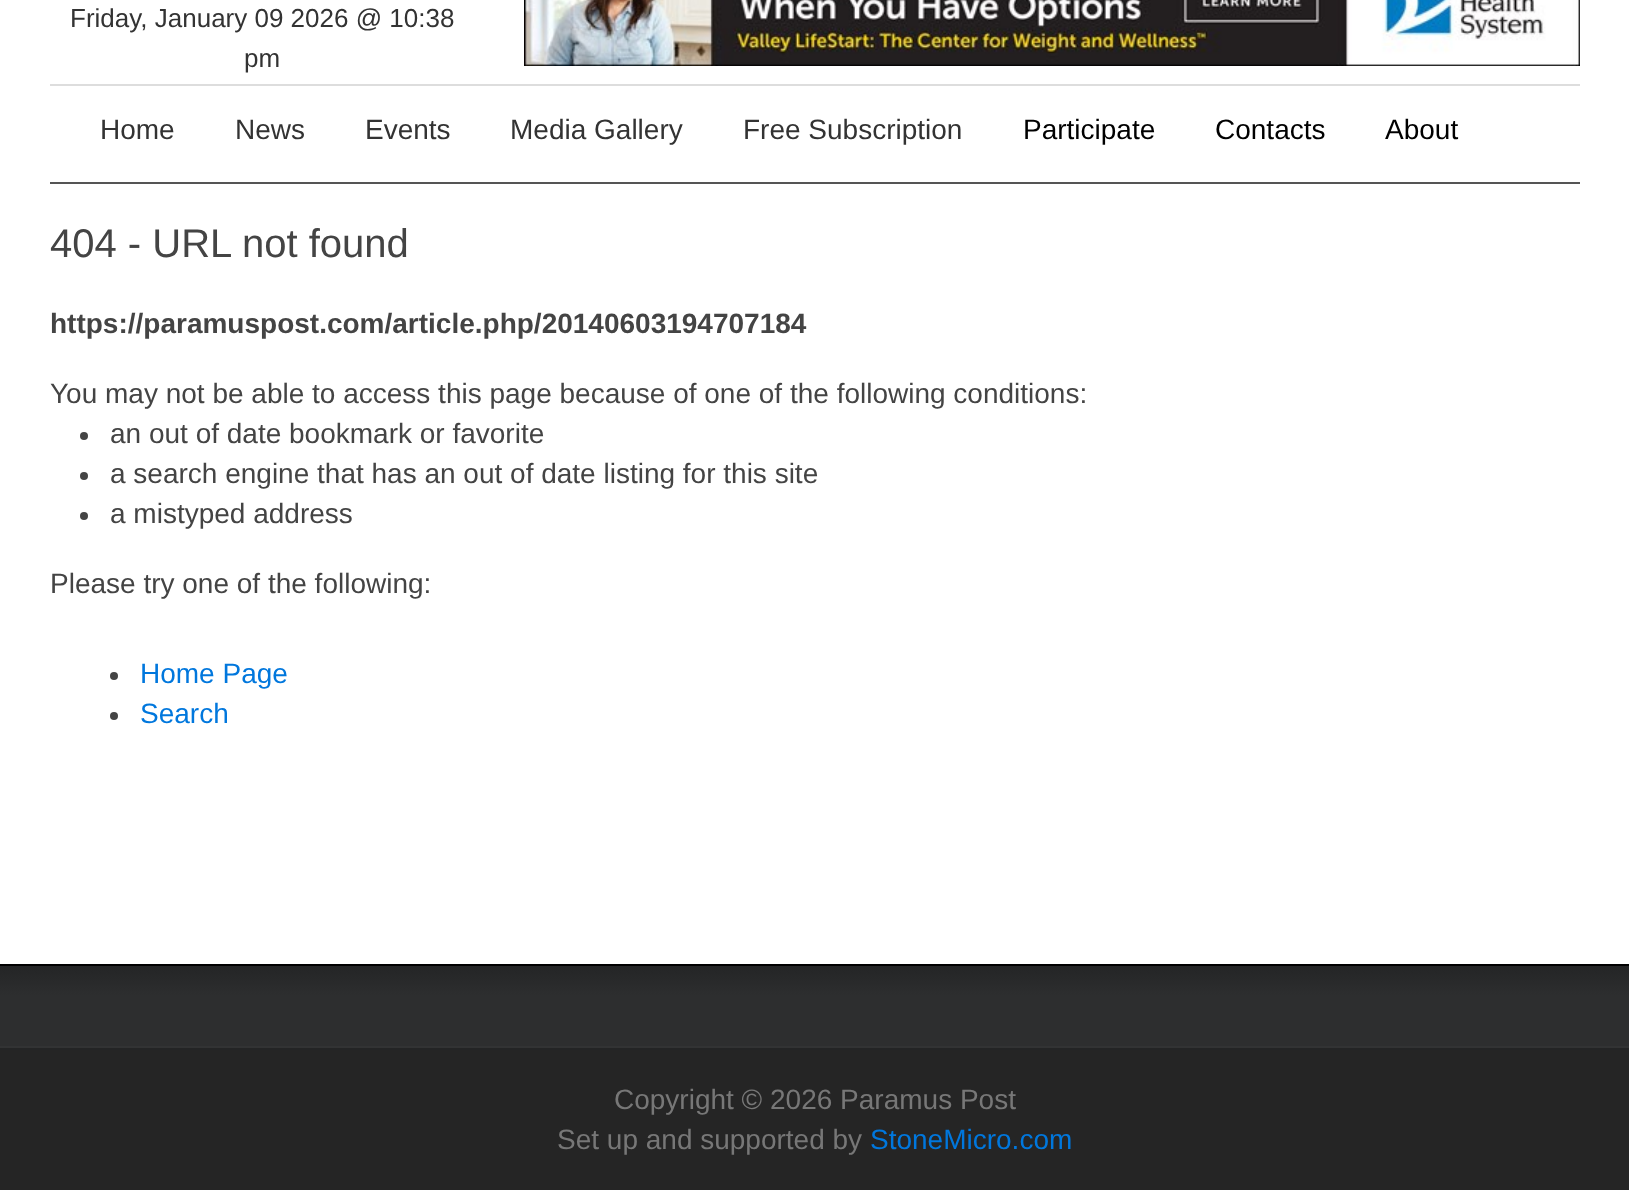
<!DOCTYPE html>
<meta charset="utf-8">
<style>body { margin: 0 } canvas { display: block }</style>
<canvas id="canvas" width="1629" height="1190"></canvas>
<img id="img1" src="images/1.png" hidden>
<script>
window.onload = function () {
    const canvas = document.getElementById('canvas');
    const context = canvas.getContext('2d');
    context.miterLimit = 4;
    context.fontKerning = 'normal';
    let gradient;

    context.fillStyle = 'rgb(255, 255, 255)';
    context.fillRect(0, 0, 1629, 1190);
    context.drawImage(document.getElementById('img1'), 524, 0, 1056, 66);
    context.fillStyle = 'rgb(221, 221, 221)';
    context.fillRect(50, 84, 1530, 2);
    context.fillStyle = 'rgb(85, 85, 85)';
    context.fillRect(50, 182, 1530, 2);
    context.fillStyle = 'rgb(68, 68, 68)';
    context.beginPath();
    context.arc(84, 436, 4, 0, 2 * Math.PI);
    context.fill();
    context.beginPath();
    context.arc(84, 476, 4, 0, 2 * Math.PI);
    context.fill();
    context.beginPath();
    context.arc(84, 516, 4, 0, 2 * Math.PI);
    context.fill();
    context.beginPath();
    context.arc(114, 676, 4, 0, 2 * Math.PI);
    context.fill();
    context.beginPath();
    context.arc(114, 716, 4, 0, 2 * Math.PI);
    context.fill();
    gradient = context.createLinearGradient(815, 966, 815, 1046);
    gradient.addColorStop(0, 'rgb(36, 37, 38)');
    gradient.addColorStop(0.37, 'rgb(45, 46, 47)');
    context.fillStyle = gradient;
    context.fillRect(0, 966, 1629, 80);
    context.fillStyle = 'rgb(0, 0, 0)';
    context.fillRect(0, 964, 1629, 2);
    context.fillStyle = 'rgb(50, 51, 52)';
    context.fillRect(0, 1046, 1629, 2);
    context.fillStyle = 'rgb(37, 37, 37)';
    context.fillRect(0, 1050, 1629, 140);
    context.fillStyle = 'rgb(35, 36, 37)';
    context.fillRect(0, 1048, 1629, 2);
    context.font = '26px Liberation Sans';
    context.fillStyle = 'rgb(51, 51, 51)';
    context.fillText('Friday, January 09 2026 @ 10:38', 70, 27);
    context.fillText('pm', 244, 67);
    context.font = '28px Liberation Sans';
    context.fillText('Home', 100, 139);
    context.fillText('News', 235, 139);
    context.fillText('Events', 365, 139);
    context.fillText('Media Gallery', 510, 139);
    context.fillText('Free Subscription', 743, 139);
    context.fillStyle = 'rgb(0, 0, 0)';
    context.fillText('Participate', 1023, 139);
    context.fillText('Contacts', 1215, 139);
    context.fillText('About', 1385, 139);
    context.font = '40px Liberation Sans';
    context.fillStyle = 'rgb(68, 68, 68)';
    context.fillText('404 - URL not found', 50, 257);
    context.font = 'bold 28px Liberation Sans';
    context.fillText('https://paramuspost.com/article.php/20140603194707184', 50, 333);
    context.font = '28px Liberation Sans';
    context.fillText('You may not be able to access this page because of one of the following conditions:', 50, 403);
    context.fillText('an out of date bookmark or favorite', 110, 443);
    context.fillText('a search engine that has an out of date listing for this site', 110, 483);
    context.fillText('a mistyped address', 110, 523);
    context.fillText('Please try one of the following:', 50, 593);
    context.fillStyle = 'rgb(0, 119, 221)';
    context.fillText('Home Page', 140, 683);
    context.fillText('Search', 140, 723);
    context.fillStyle = 'rgb(119, 119, 119)';
    context.fillText('Copyright © 2026 Paramus Post', 614, 1109);
    context.fillText('Set up and supported by', 557, 1149);
    context.fillStyle = 'rgb(0, 119, 221)';
    context.fillText('StoneMicro.com', 870, 1149);
};
</script>
